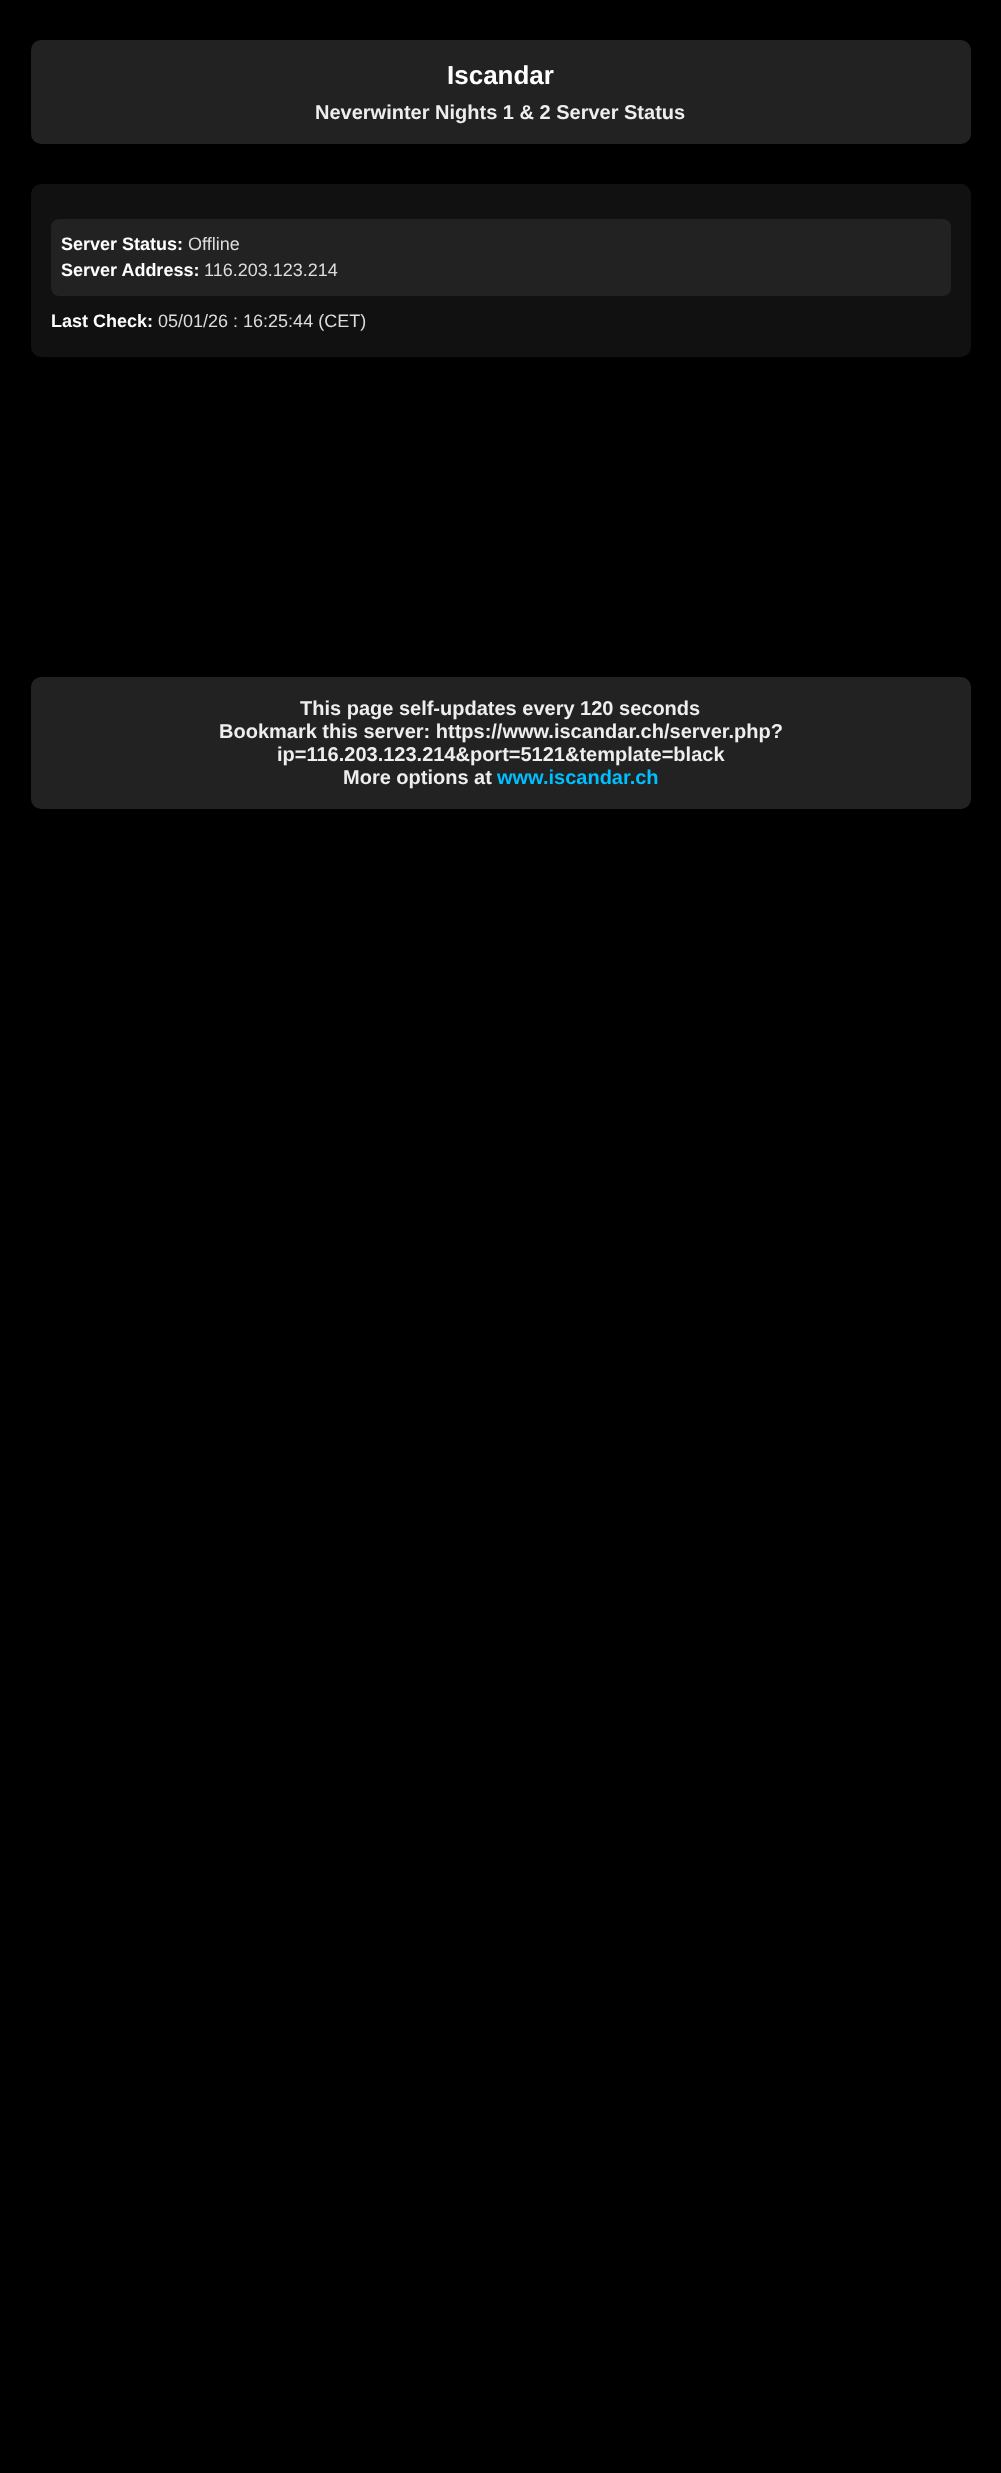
<!DOCTYPE html>
<meta charset="utf-8">
<style>body { margin: 0 } canvas { display: block }</style>
<canvas id="canvas" width="1001" height="2473"></canvas>
<script>
window.onload = function () {
    const canvas = document.getElementById('canvas');
    const context = canvas.getContext('2d');
    context.miterLimit = 4;
    context.fontKerning = 'normal';

    context.fillStyle = 'rgb(0, 0, 0)';
    context.fillRect(0, 0, 1001, 2473);
    context.fillStyle = 'rgb(34, 34, 34)';
    context.beginPath();
    context.roundRect(31, 40, 940, 104, 10);
    context.fill();
    context.fillStyle = 'rgb(17, 17, 17)';
    context.beginPath();
    context.roundRect(31, 184, 940, 173, 10);
    context.fill();
    context.fillStyle = 'rgb(34, 34, 34)';
    context.beginPath();
    context.roundRect(51, 219, 900, 77, 8);
    context.fill();
    context.beginPath();
    context.roundRect(31, 677, 940, 132, 10);
    context.fill();
    context.font = 'bold 26px Liberation Sans';
    context.fillStyle = 'rgb(255, 255, 255)';
    context.fillText('Iscandar', 447, 84);
    context.font = 'bold 20px Liberation Sans';
    context.fillStyle = 'rgb(238, 238, 238)';
    context.fillText('Neverwinter Nights 1 & 2 Server Status', 315, 119);
    context.font = 'bold 18px Liberation Sans';
    context.fillStyle = 'rgb(255, 255, 255)';
    context.fillText('Server Status:', 61, 250);
    context.font = '18px Liberation Sans';
    context.fillStyle = 'rgb(221, 221, 221)';
    context.fillText('Offline', 188, 250);
    context.font = 'bold 18px Liberation Sans';
    context.fillStyle = 'rgb(255, 255, 255)';
    context.fillText('Server Address:', 61, 276);
    context.font = '18px Liberation Sans';
    context.fillStyle = 'rgb(221, 221, 221)';
    context.fillText('116.203.123.214', 204, 276);
    context.font = 'bold 18px Liberation Sans';
    context.fillStyle = 'rgb(255, 255, 255)';
    context.fillText('Last Check:', 51, 327);
    context.font = '18px Liberation Sans';
    context.fillStyle = 'rgb(221, 221, 221)';
    context.fillText('05/01/26 : 16:25:44 (CET)', 158, 327);
    context.font = 'bold 20px Liberation Sans';
    context.fillStyle = 'rgb(238, 238, 238)';
    context.fillText('This page self-updates every 120 seconds', 300, 715);
    context.fillText('Bookmark this server: https://www.iscandar.ch/server.php?', 219, 738);
    context.fillText('ip=116.203.123.214&port=5121&template=black', 277, 761);
    context.fillText('More options at', 343, 784);
    context.fillStyle = 'rgb(0, 191, 255)';
    context.fillText('www.iscandar.ch', 497, 784);
};
</script>
